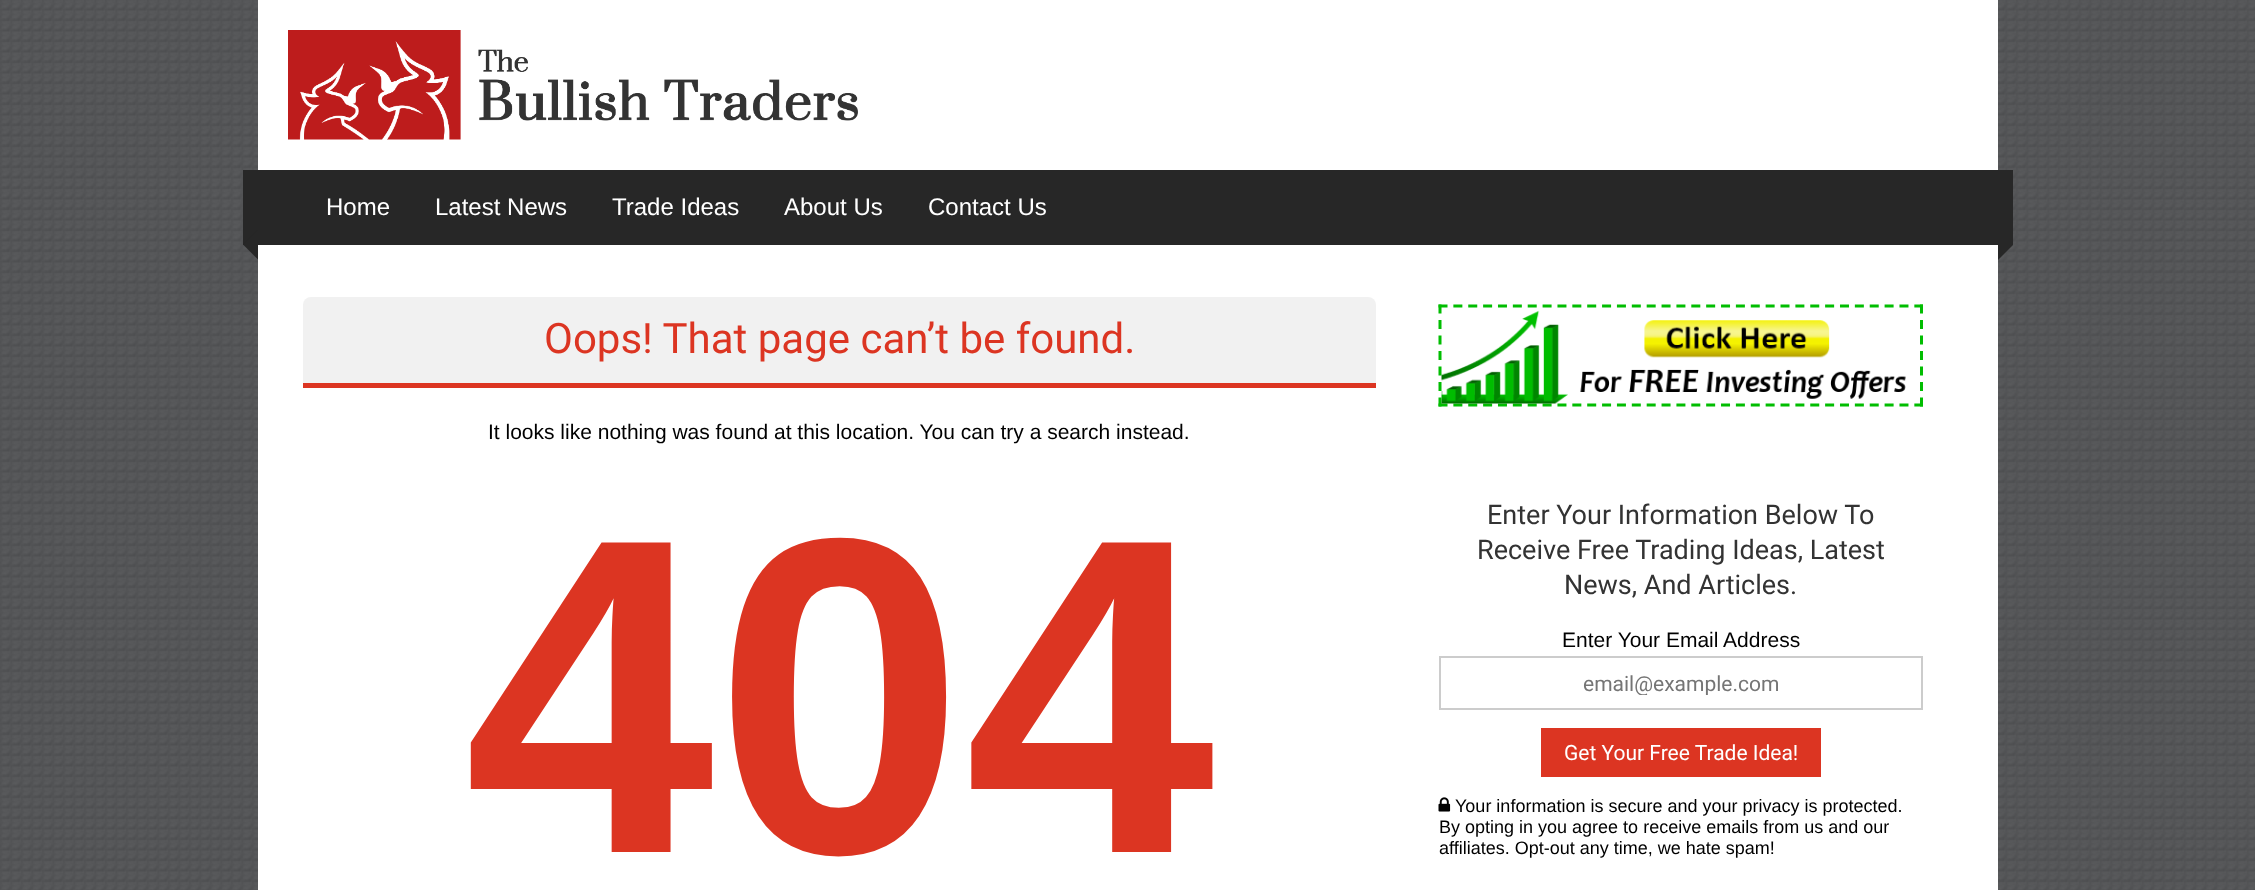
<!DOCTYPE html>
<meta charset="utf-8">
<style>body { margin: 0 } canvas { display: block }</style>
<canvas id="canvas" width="2255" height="890"></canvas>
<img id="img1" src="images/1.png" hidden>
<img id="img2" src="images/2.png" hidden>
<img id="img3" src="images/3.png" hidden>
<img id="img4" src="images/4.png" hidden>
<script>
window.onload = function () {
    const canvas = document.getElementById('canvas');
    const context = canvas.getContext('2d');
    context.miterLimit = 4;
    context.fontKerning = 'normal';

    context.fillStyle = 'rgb(255, 255, 255)';
    context.fillRect(0, 0, 2255, 890);
    context.drawImage(document.getElementById('img1'), 0, 0, 2255, 890);
    context.fillRect(258, 0, 1740, 890);
    context.drawImage(document.getElementById('img2'), 288, 30, 570, 110);
    context.fillStyle = 'rgb(39, 39, 39)';
    context.fillRect(243, 170, 1755, 75);
    context.beginPath();
    context.moveTo(258, 229.5);
    context.lineTo(258, 259.5);
    context.lineTo(243, 244.5);
    context.closePath();
    context.fill();
    context.beginPath();
    context.moveTo(1998, 260);
    context.lineTo(1998, 230);
    context.lineTo(2013, 245);
    context.closePath();
    context.fill();
    context.fillRect(1998, 170, 15, 75);
    context.fillStyle = 'rgb(241, 241, 241)';
    context.beginPath();
    context.roundRect(303, 297, 1073, 90, [8, 8, 0, 0]);
    context.fill();
    context.fillStyle = 'rgb(220, 53, 34)';
    context.fillRect(303, 383, 1073, 5);
    context.beginPath();
    context.moveTo(1438.5, 306);
    context.lineTo(1923, 306);
    context.strokeStyle = 'rgb(1, 189, 1)';
    context.lineWidth = 3;
    context.setLineDash([9, 5.87]);
    context.stroke();
    context.beginPath();
    context.moveTo(1921.5, 304.5);
    context.lineTo(1921.5, 406.5);
    context.setLineDash([9, 6.5]);
    context.stroke();
    context.beginPath();
    context.moveTo(1438.5, 405);
    context.lineTo(1923, 405);
    context.setLineDash([9, 5.87]);
    context.stroke();
    context.beginPath();
    context.moveTo(1440, 304.5);
    context.lineTo(1440, 406.5);
    context.setLineDash([9, 6.5]);
    context.stroke();
    context.drawImage(document.getElementById('img3'), 1441, 310, 465, 94);
    context.strokeStyle = 'rgb(204, 204, 204)';
    context.lineWidth = 2;
    context.setLineDash([]);
    context.strokeRect(1440, 657, 482, 52);
    context.fillRect(1541, 728, 280, 49);
    context.drawImage(document.getElementById('img4'), 1438, 797, 13, 15);
    context.font = '24px Liberation Sans';
    context.fillStyle = 'rgb(255, 255, 255)';
    context.fillText('Home', 326, 215);
    context.fillText('Latest News', 435, 215);
    context.fillText('Trade Ideas', 612, 215);
    context.fillText('About Us', 784, 215);
    context.fillText('Contact Us', 928, 215);
    context.font = '42px Roboto';
    context.fillStyle = 'rgb(220, 53, 34)';
    context.fillText('Oops! That page can’t be found.', 544, 353);
    context.font = '21px Liberation Sans';
    context.fillStyle = 'rgb(0, 0, 0)';
    context.fillText('It looks like nothing was found at this location. You can try a search instead.', 488, 439);
    context.font = 'bold 450px Liberation Sans';
    context.fillStyle = 'rgb(220, 53, 34)';
    context.fillText('404', 464, 852);
    context.font = '27px Roboto';
    context.fillStyle = 'rgb(51, 51, 51)';
    context.fillText('Enter Your Information Below To', 1487, 524);
    context.fillText('Receive Free Trading Ideas, Latest', 1477, 559);
    context.fillText('News, And Articles.', 1564, 594);
    context.font = '21px Liberation Sans';
    context.fillStyle = 'rgb(0, 0, 0)';
    context.fillText('Enter Your Email Address', 1562, 647);
    context.save();
    context.beginPath();
    context.rect(1449, 671, 464, 24);
    context.clip();
    context.font = '21px Roboto';
    context.fillStyle = 'rgb(117, 117, 117)';
    context.fillText('email@example.com', 1583, 691);
    context.restore();
    context.font = '21px Roboto';
    context.fillStyle = 'rgb(255, 255, 255)';
    context.fillText('Get Your Free Trade Idea!', 1564, 760);
    context.font = '18px Liberation Sans';
    context.fillStyle = 'rgb(0, 0, 0)';
    context.fillText('Your information is secure and your privacy is protected.', 1455, 812);
    context.fillText('By opting in you agree to receive emails from us and our', 1439, 833);
    context.fillText('affiliates. Opt-out any time, we hate spam!', 1439, 854);
};
</script>
